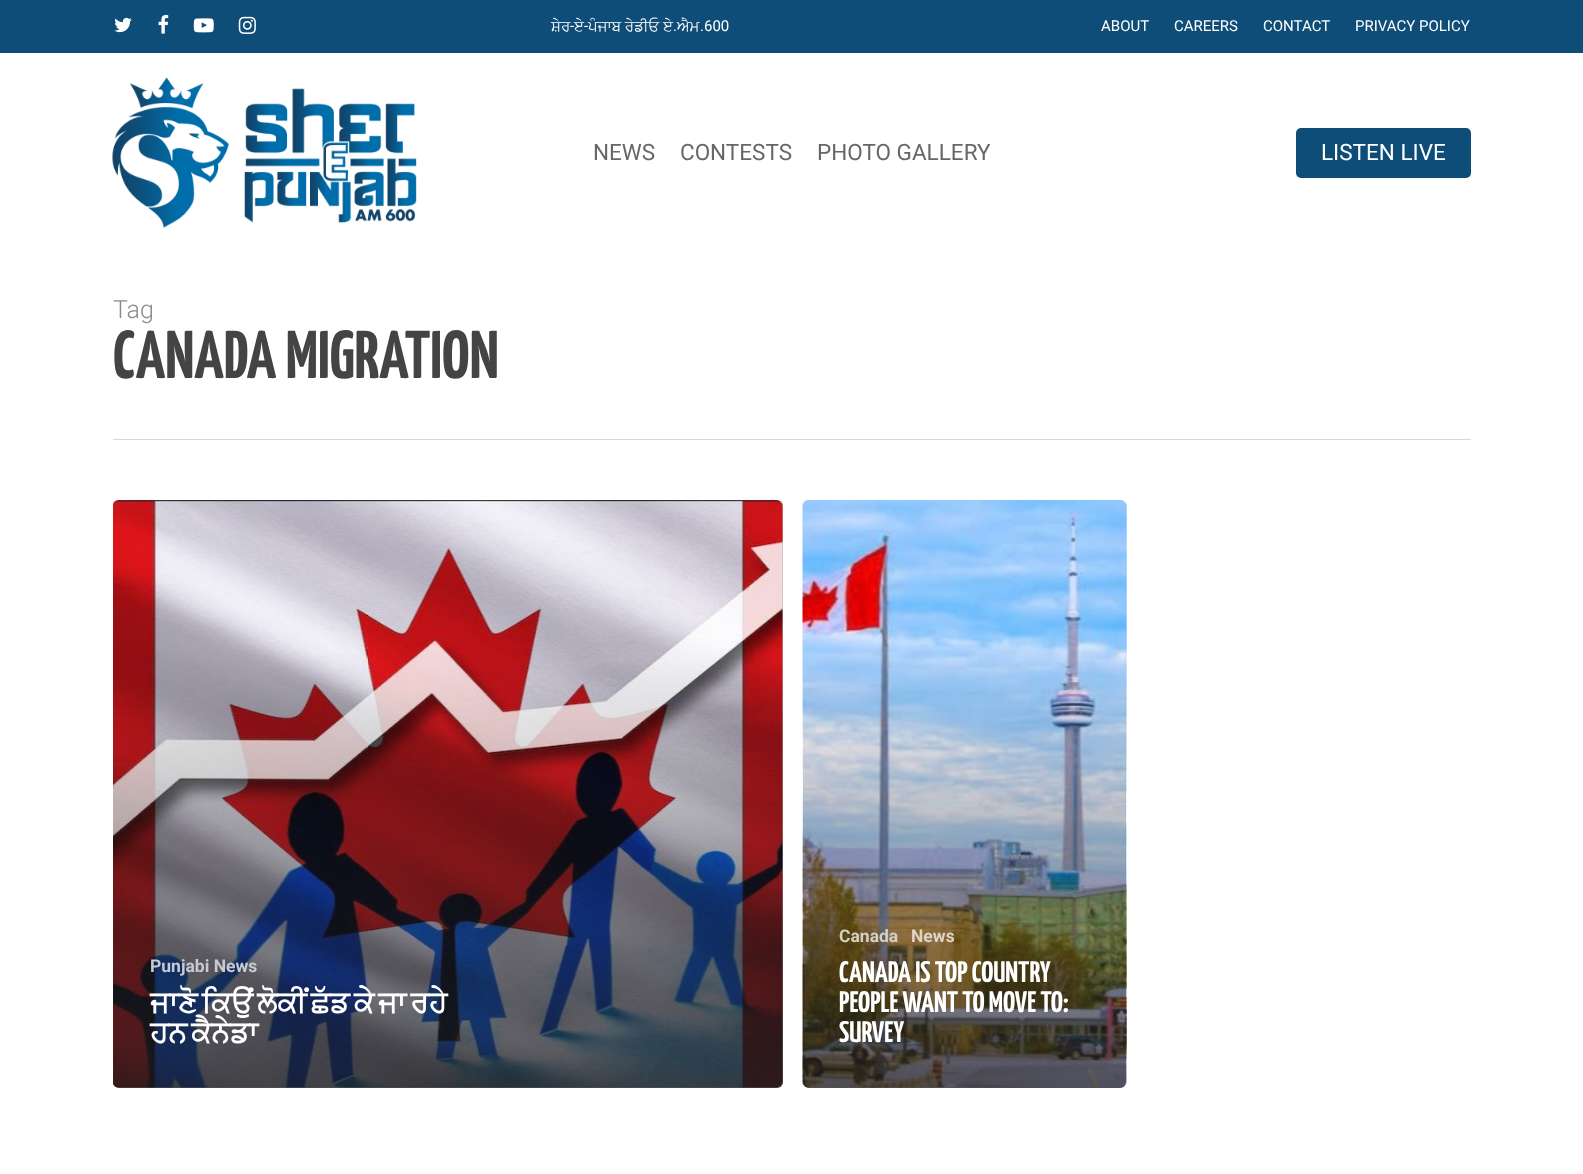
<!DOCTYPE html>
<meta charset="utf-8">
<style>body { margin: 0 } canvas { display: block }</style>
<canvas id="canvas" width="1583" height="1174"></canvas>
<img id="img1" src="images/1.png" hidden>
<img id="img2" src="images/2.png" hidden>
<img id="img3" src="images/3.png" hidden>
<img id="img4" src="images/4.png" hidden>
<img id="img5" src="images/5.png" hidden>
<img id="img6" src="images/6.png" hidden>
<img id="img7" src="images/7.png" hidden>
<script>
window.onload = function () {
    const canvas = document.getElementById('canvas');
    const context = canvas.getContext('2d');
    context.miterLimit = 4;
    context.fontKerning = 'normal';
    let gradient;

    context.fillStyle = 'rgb(255, 255, 255)';
    context.fillRect(0, 0, 1583, 1174);
    context.fillStyle = 'rgb(14, 77, 120)';
    context.fillRect(0, 0, 1583, 53);
    context.drawImage(document.getElementById('img1'), 114, 17, 18, 16);
    context.drawImage(document.getElementById('img2'), 158, 15, 11, 19);
    context.drawImage(document.getElementById('img3'), 193, 18, 21, 15);
    context.drawImage(document.getElementById('img4'), 238, 16, 18, 18);
    context.drawImage(document.getElementById('img5'), 112, 77, 305, 151);
    context.beginPath();
    context.roundRect(1296, 128, 175, 50, 5);
    context.fill();
    context.fillStyle = 'rgb(217, 217, 217)';
    context.fillRect(113, 439, 1358, 1);
    context.fillStyle = 'rgb(179, 179, 179)';
    context.beginPath();
    context.roundRect(113, 500, 670, 588, 6);
    context.fill();
    context.drawImage(document.getElementById('img6'), 113, 500, 670, 588);
    gradient = context.createLinearGradient(449, 648, 449, 1090);
    gradient.addColorStop(0, 'rgba(35, 35, 35, 0)');
    gradient.addColorStop(1, 'rgba(35, 35, 35, 0.65)');
    context.fillStyle = gradient;
    context.beginPath();
    context.roundRect(113, 648, 670, 440, [0, 0, 6, 6]);
    context.fill();
    context.fillStyle = 'rgb(179, 179, 179)';
    context.beginPath();
    context.roundRect(803, 500, 323, 588, 6);
    context.fill();
    context.drawImage(document.getElementById('img7'), 802, 500, 325, 588);
    gradient = context.createLinearGradient(966, 648, 966, 1090);
    gradient.addColorStop(0, 'rgba(35, 35, 35, 0)');
    gradient.addColorStop(1, 'rgba(35, 35, 35, 0.65)');
    context.fillStyle = gradient;
    context.beginPath();
    context.roundRect(803, 648, 323, 440, [0, 0, 6, 6]);
    context.fill();
    context.font = '15px FreeSans';
    context.fillStyle = 'rgb(255, 255, 255)';
    context.fillText('ਸ਼ੇਰ', 551, 31);
    context.font = '15px Roboto';
    context.fillText('-', 570, 31);
    context.font = '15px FreeSans';
    context.fillText('ਏ', 574, 31);
    context.font = '15px Roboto';
    context.fillText('-', 584, 31);
    context.font = '15px FreeSans';
    context.fillText('ਪੰਜਾਬ ਰੇਡੀਓ ਏ ਐਮ', 588, 31);
    context.font = '15px Roboto';
    context.fillText('.600', 700, 31);
    context.fillText('.', 673, 31);
    context.fillText('ABOUT', 1101, 31);
    context.fillText('CAREERS', 1174, 31);
    context.fillText('CONTACT', 1263, 31);
    context.fillText('PRIVACY POLICY', 1355, 31);
    context.font = '22.5px Roboto';
    context.fillStyle = 'rgb(103, 103, 103)';
    context.fillText('NEWS', 593, 160);
    context.fillText('CONTESTS', 680, 160);
    context.fillText('PHOTO GALLERY', 817, 160);
    context.fillStyle = 'rgb(255, 255, 255)';
    context.fillText('LISTEN LIVE', 1321, 160);
    context.font = '300 25px Roboto';
    context.fillStyle = 'rgb(140, 140, 140)';
    context.fillText('Tag', 113, 318);
    context.font = 'bold 67.5px Yanone Kaffeesatz';
    context.fillStyle = 'rgb(68, 68, 68)';
    context.fillText('CANADA MIGRATION', 113, 378);
    context.font = 'bold 17.5px Roboto';
    context.fillStyle = 'rgb(199, 202, 209)';
    context.fillText('Punjabi News', 150, 972);
    context.wordSpacing = '-3.25px';
    context.font = 'bold 29.75px FreeSans';
    context.fillStyle = 'rgb(255, 255, 255)';
    context.fillText('ਜਾਣੋ ਕਿਉਂ ਲੋਕੀਂ ਛੱਡ ਕੇ ਜਾ ਰਹੇ', 150, 1012);
    context.fillText('ਹਨ ਕੈਨੇਡਾ', 150, 1042);
    context.wordSpacing = '0px';
    context.font = 'bold 17.5px Roboto';
    context.fillStyle = 'rgb(213, 208, 198)';
    context.fillText('Canada', 839, 942);
    context.fillStyle = 'rgb(222, 213, 200)';
    context.fillText('News', 911, 942);
    context.font = 'bold 29.75px Yanone Kaffeesatz';
    context.fillStyle = 'rgb(255, 255, 255)';
    context.fillText('CANADA IS TOP COUNTRY', 839, 982);
    context.fillText('PEOPLE WANT TO MOVE TO:', 839, 1012);
    context.fillText('SURVEY', 839, 1042);
};
</script>
